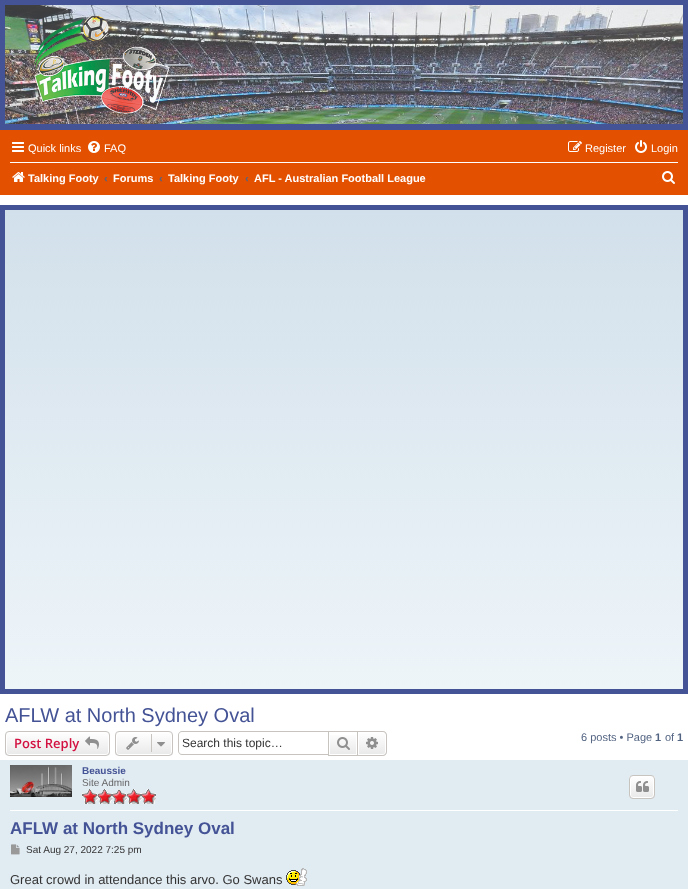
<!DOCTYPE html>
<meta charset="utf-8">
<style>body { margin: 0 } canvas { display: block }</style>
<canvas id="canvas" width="688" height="889"></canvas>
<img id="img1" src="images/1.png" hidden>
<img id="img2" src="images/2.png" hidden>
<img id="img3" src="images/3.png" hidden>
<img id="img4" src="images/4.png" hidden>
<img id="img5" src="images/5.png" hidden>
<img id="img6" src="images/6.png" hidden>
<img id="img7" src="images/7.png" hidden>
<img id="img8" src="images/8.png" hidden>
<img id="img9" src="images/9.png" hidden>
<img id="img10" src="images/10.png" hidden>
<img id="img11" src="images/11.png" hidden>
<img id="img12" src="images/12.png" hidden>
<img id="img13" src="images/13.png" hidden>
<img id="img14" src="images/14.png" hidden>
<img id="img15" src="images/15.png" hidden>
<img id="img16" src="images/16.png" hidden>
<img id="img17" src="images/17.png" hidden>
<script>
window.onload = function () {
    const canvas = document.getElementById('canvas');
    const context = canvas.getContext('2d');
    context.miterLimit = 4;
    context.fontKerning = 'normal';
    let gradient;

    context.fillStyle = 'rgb(255, 255, 255)';
    context.fillRect(0, 0, 688, 889);
    context.fillStyle = 'rgb(68, 83, 149)';
    context.fillRect(0, 0, 688, 130);
    context.drawImage(document.getElementById('img1'), 5, 5, 678, 119);
    context.fillStyle = 'rgb(227, 80, 0)';
    context.fillRect(0, 130, 688, 65);
    context.drawImage(document.getElementById('img2'), 12, 142, 12, 10);
    context.drawImage(document.getElementById('img3'), 88, 141, 12, 12);
    context.drawImage(document.getElementById('img4'), 568, 141, 14, 11);
    context.drawImage(document.getElementById('img5'), 635, 140, 12, 13);
    context.fillStyle = 'rgb(255, 255, 255)';
    context.fillRect(10, 162, 668, 1);
    context.drawImage(document.getElementById('img6'), 12, 172, 13, 10);
    context.drawImage(document.getElementById('img7'), 662, 171, 13, 13);
    context.fillStyle = 'rgb(68, 83, 149)';
    context.fillRect(0, 205, 688, 489);
    gradient = context.createLinearGradient(344, 210, 344, 689);
    gradient.addColorStop(0, 'rgb(210, 224, 235)');
    gradient.addColorStop(1, 'rgb(238, 245, 249)');
    context.fillStyle = gradient;
    context.fillRect(5, 210, 678, 479);
    context.save();
    context.beginPath();
    context.roundRect(5, 731, 105, 25, 4);
    context.clip();
    gradient = context.createLinearGradient(58, 732, 58, 755);
    gradient.addColorStop(0, 'rgb(255, 255, 255)');
    gradient.addColorStop(1, 'rgb(233, 233, 233)');
    context.fillStyle = gradient;
    context.fillRect(5, 732, 105, 23);
    context.restore();
    context.beginPath();
    context.roundRect(6.5, 732.5, 102, 22, 2.5);
    context.strokeStyle = 'rgb(255, 255, 255)';
    context.stroke();
    context.beginPath();
    context.roundRect(5.5, 731.5, 104, 24, 3.5);
    context.strokeStyle = 'rgb(199, 195, 191)';
    context.stroke();
    context.drawImage(document.getElementById('img8'), 85, 736, 14, 13);
    context.save();
    context.beginPath();
    context.roundRect(115, 731, 58, 25, 4);
    context.clip();
    gradient = context.createLinearGradient(144, 732, 144, 755);
    gradient.addColorStop(0, 'rgb(255, 255, 255)');
    gradient.addColorStop(1, 'rgb(233, 233, 233)');
    context.fillStyle = gradient;
    context.fillRect(115, 732, 58, 23);
    context.restore();
    context.beginPath();
    context.roundRect(116.5, 732.5, 55, 22, 2.5);
    context.strokeStyle = 'rgb(255, 255, 255)';
    context.stroke();
    context.beginPath();
    context.roundRect(115.5, 731.5, 57, 24, 3.5);
    context.strokeStyle = 'rgb(199, 195, 191)';
    context.stroke();
    context.drawImage(document.getElementById('img9'), 126, 737, 13, 13);
    context.fillStyle = 'rgb(199, 195, 191)';
    context.fillRect(151, 734, 1, 18);
    context.drawImage(document.getElementById('img10'), 157, 742, 8, 5);
    context.beginPath();
    context.moveTo(182, 731);
    context.lineTo(328, 731);
    context.lineTo(328, 755);
    context.lineTo(182, 755);
    context.bezierCurveTo(180, 755, 178, 753, 178, 751);
    context.lineTo(178, 735);
    context.bezierCurveTo(178, 733, 180, 731, 182, 731);
    context.closePath();
    context.moveTo(182, 732);
    context.lineTo(328, 732);
    context.lineTo(328, 754);
    context.lineTo(182, 754);
    context.bezierCurveTo(180, 754, 179, 753, 179, 751);
    context.lineTo(179, 735);
    context.bezierCurveTo(179, 733, 180, 732, 182, 732);
    context.closePath();
    context.fill('evenodd');
    gradient = context.createLinearGradient(343, 732, 343, 755);
    gradient.addColorStop(0, 'rgb(255, 255, 255)');
    gradient.addColorStop(1, 'rgb(233, 233, 233)');
    context.fillStyle = gradient;
    context.fillRect(330, 735, 26, 19);
    context.strokeRect(328.5, 731.5, 29, 24);
    context.drawImage(document.getElementById('img11'), 337, 737, 13, 13);
    gradient = context.createLinearGradient(372, 732, 372, 755);
    gradient.addColorStop(0, 'rgb(255, 255, 255)');
    gradient.addColorStop(1, 'rgb(233, 233, 233)');
    context.fillStyle = gradient;
    context.beginPath();
    context.roundRect(358.5, 732.5, 27, 22, [0, 2.5, 2.5, 0]);
    context.fill();
    context.strokeStyle = 'rgb(255, 255, 255)';
    context.stroke();
    context.fillStyle = 'rgb(199, 195, 191)';
    context.beginPath();
    context.moveTo(358, 731);
    context.lineTo(383, 731);
    context.bezierCurveTo(385, 731, 387, 733, 387, 735);
    context.lineTo(387, 752);
    context.bezierCurveTo(387, 754, 385, 756, 383, 756);
    context.lineTo(358, 756);
    context.closePath();
    context.moveTo(358, 732);
    context.lineTo(383, 732);
    context.bezierCurveTo(384.5, 732, 386, 733.5, 386, 735);
    context.lineTo(386, 752);
    context.bezierCurveTo(386, 753.5, 384.5, 755, 383, 755);
    context.lineTo(358, 755);
    context.closePath();
    context.fill('evenodd');
    context.drawImage(document.getElementById('img12'), 366, 737, 12, 12);
    context.fillStyle = 'rgb(225, 235, 242)';
    context.fillRect(0, 760, 688, 129);
    context.fillStyle = 'rgb(255, 255, 255)';
    context.fillRect(10, 810, 668, 1);
    context.drawImage(document.getElementById('img13'), 10, 765, 62, 32);
    context.drawImage(document.getElementById('img14'), 82, 789, 74, 15);
    context.save();
    context.beginPath();
    context.roundRect(629, 775, 26, 24, 4);
    context.clip();
    gradient = context.createLinearGradient(642, 776, 642, 798);
    gradient.addColorStop(0, 'rgb(255, 255, 255)');
    gradient.addColorStop(1, 'rgb(233, 233, 233)');
    context.fillStyle = gradient;
    context.fillRect(629, 776, 26, 22);
    context.restore();
    context.beginPath();
    context.roundRect(630.5, 776.5, 23, 21, 2.5);
    context.stroke();
    context.beginPath();
    context.roundRect(629.5, 775.5, 25, 23, 3.5);
    context.strokeStyle = 'rgb(199, 195, 191)';
    context.stroke();
    context.drawImage(document.getElementById('img15'), 636, 781, 13, 11);
    context.drawImage(document.getElementById('img16'), 11, 844, 9, 11);
    context.drawImage(document.getElementById('img17'), 286, 868, 21, 18);
    context.font = '11px Liberation Sans';
    context.fillText('Quick links', 28, 152);
    context.fillText('FAQ', 104, 152);
    context.fillText('Register', 585, 152);
    context.fillText('Login', 651, 152);
    context.font = 'bold 11px Liberation Sans';
    context.fillText('Talking Footy', 28, 182);
    context.fillStyle = 'rgb(83, 100, 130)';
    context.fillText('‹', 104, 182);
    context.fillStyle = 'rgb(255, 255, 255)';
    context.fillText('Forums', 113, 182);
    context.fillStyle = 'rgb(83, 100, 130)';
    context.fillText('‹', 159, 182);
    context.fillStyle = 'rgb(255, 255, 255)';
    context.fillText('Talking Footy', 168, 182);
    context.fillStyle = 'rgb(83, 100, 130)';
    context.fillText('‹', 245, 182);
    context.fillStyle = 'rgb(255, 255, 255)';
    context.fillText('AFL - Australian Football League', 254, 182);
    context.font = '20px Liberation Sans';
    context.fillStyle = 'rgb(68, 83, 149)';
    context.fillText('AFLW at North Sydney Oval', 5, 722);
    context.font = '600 13px Open Sans';
    context.fillStyle = 'rgb(211, 17, 65)';
    context.fillText('Post Reply', 14, 748);
    context.font = '12px Liberation Sans';
    context.fillStyle = 'rgb(51, 51, 51)';
    context.fillText('Search this topic…', 182, 747);
    context.font = '11px Liberation Sans';
    context.fillStyle = 'rgb(83, 100, 130)';
    context.fillText('6 posts • Page', 581, 741);
    context.font = 'bold 11px Liberation Sans';
    context.fillText('1', 655, 741);
    context.font = '11px Liberation Sans';
    context.fillText('of', 665, 741);
    context.font = 'bold 11px Liberation Sans';
    context.fillText('1', 677, 741);
    context.font = 'bold 10px Liberation Sans';
    context.fillStyle = 'rgb(68, 83, 149)';
    context.fillText('Beaussie', 82, 774);
    context.font = '10px Liberation Sans';
    context.fillStyle = 'rgb(102, 102, 102)';
    context.fillText('Site Admin', 82, 786);
    context.font = 'bold 17px Liberation Sans';
    context.fillStyle = 'rgb(68, 83, 149)';
    context.fillText('AFLW at North Sydney Oval', 10, 834);
    context.font = '10px Liberation Sans';
    context.fillStyle = 'rgb(51, 51, 51)';
    context.fillText('Sat Aug 27, 2022 7:25 pm', 26, 853);
    context.font = '13px Liberation Sans';
    context.fillText('Great crowd in attendance this arvo. Go Swans', 10, 884);
};
</script>
